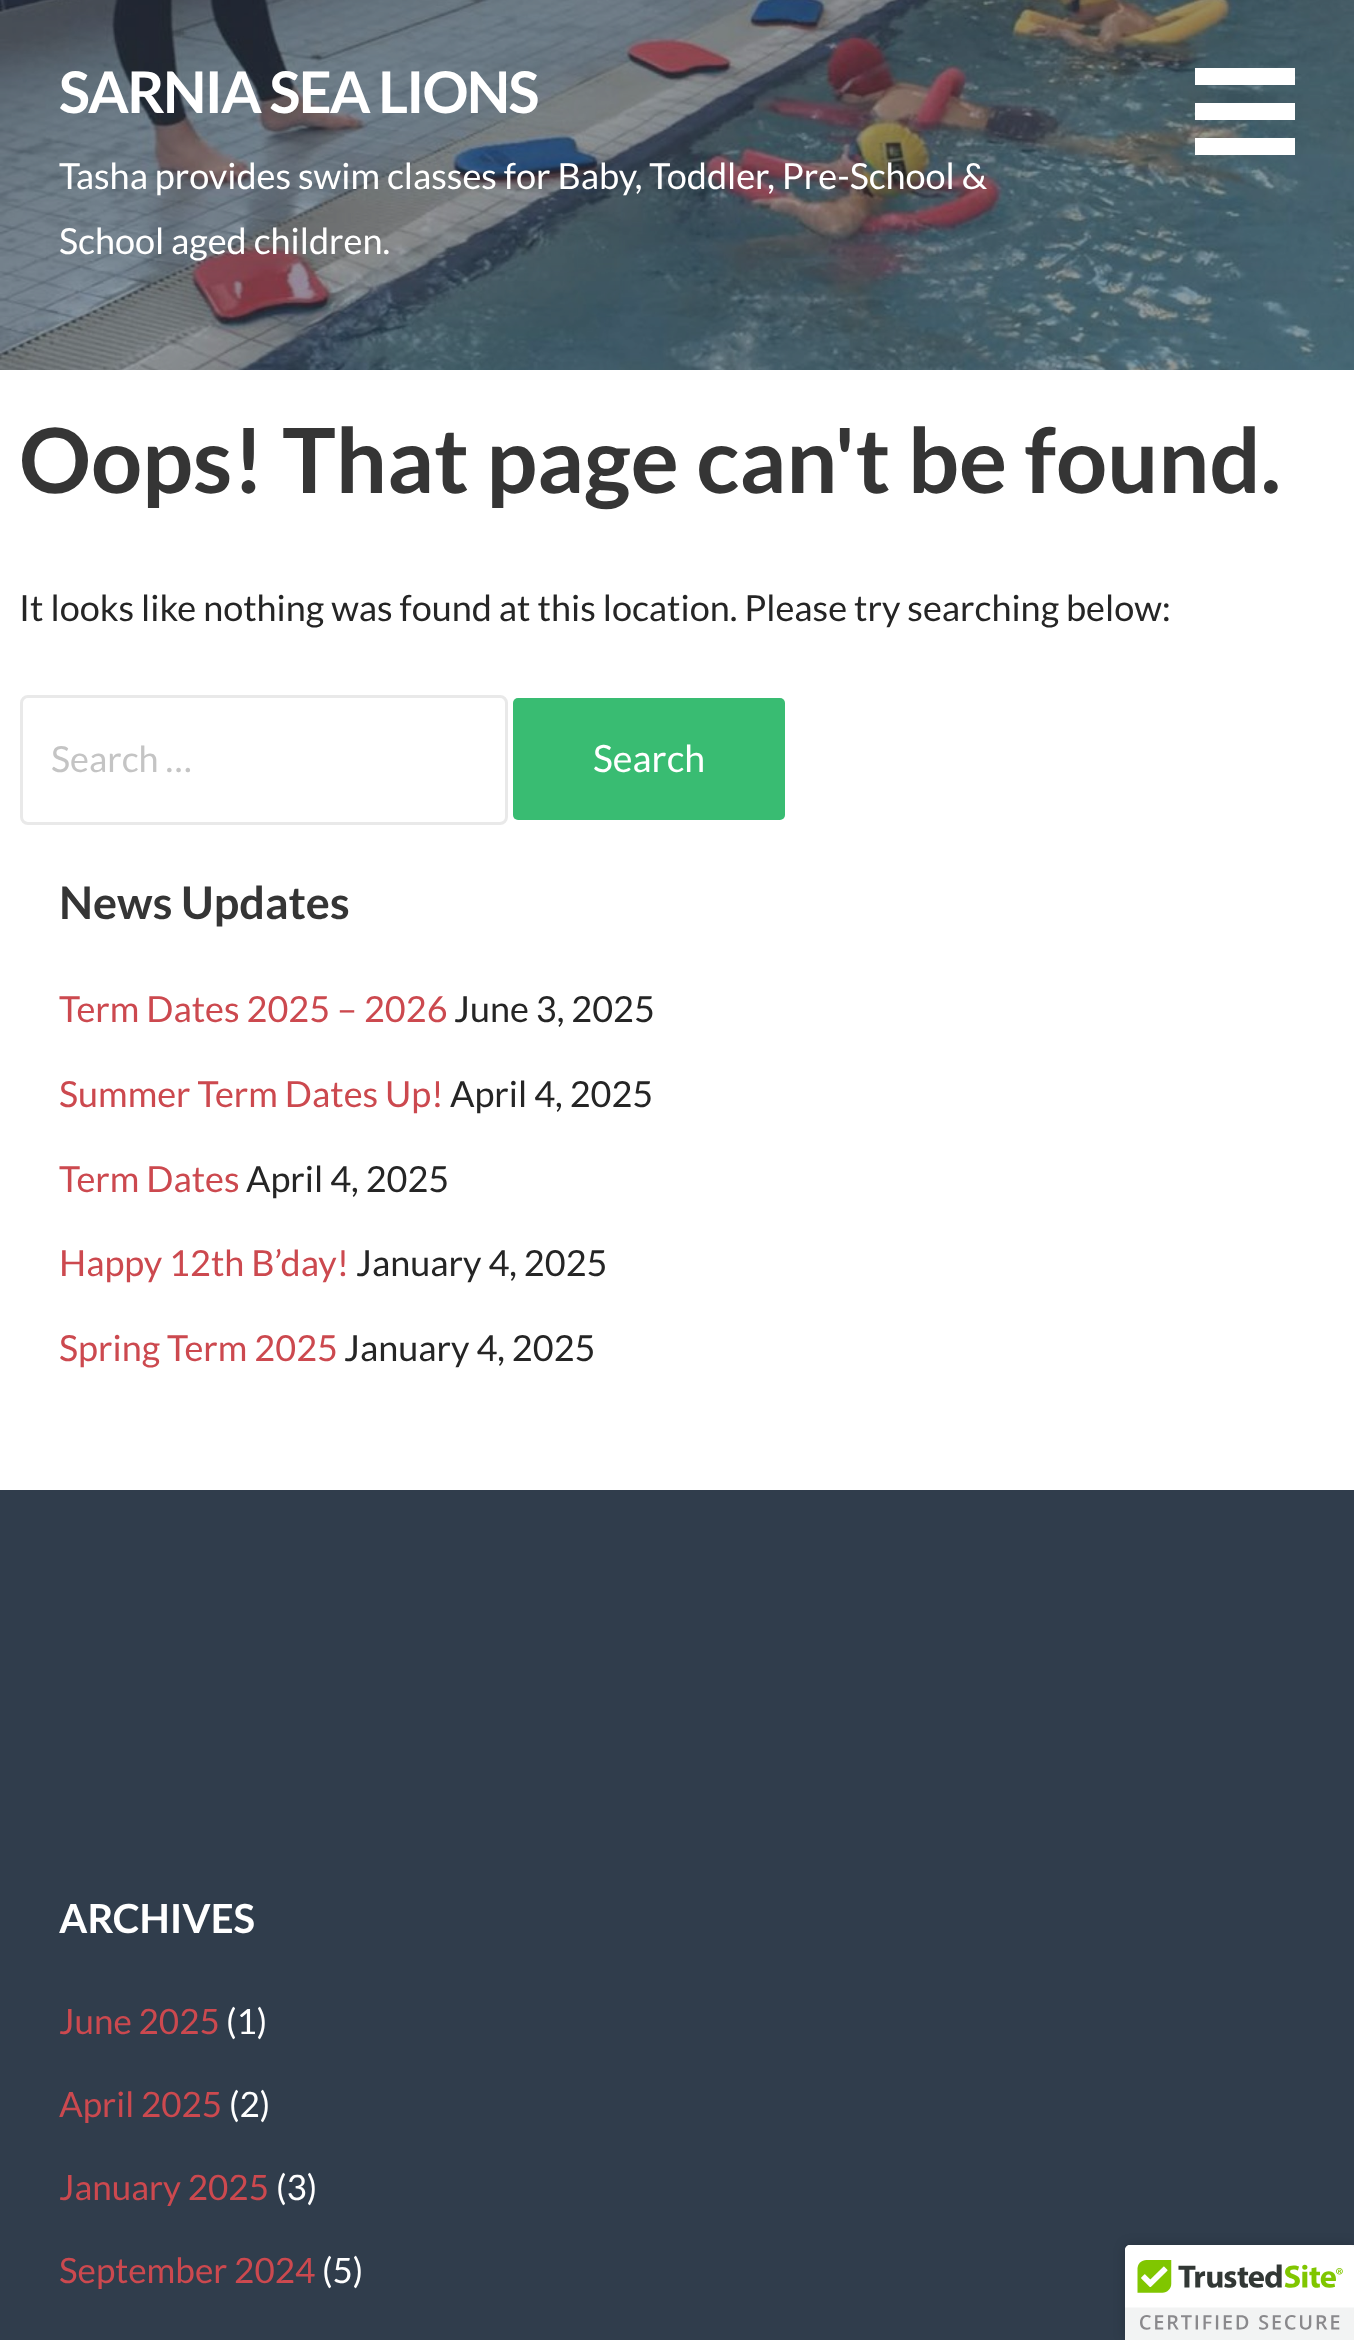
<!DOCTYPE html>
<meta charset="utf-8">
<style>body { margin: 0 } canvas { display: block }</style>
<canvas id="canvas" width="1354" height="2340"></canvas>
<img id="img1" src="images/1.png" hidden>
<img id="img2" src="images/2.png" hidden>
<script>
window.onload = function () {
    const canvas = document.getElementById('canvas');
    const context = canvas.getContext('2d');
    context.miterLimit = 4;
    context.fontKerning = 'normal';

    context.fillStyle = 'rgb(255, 255, 255)';
    context.fillRect(0, 0, 1354, 2340);
    context.drawImage(document.getElementById('img1'), 0, 0, 1354, 370);
    context.fillRect(1195, 68, 100, 17);
    context.fillRect(1195, 103, 100, 17);
    context.fillRect(1195, 138, 100, 17);
    context.beginPath();
    context.roundRect(21.5, 696.5, 485, 127, 6.5);
    context.strokeStyle = 'rgb(233, 233, 233)';
    context.lineWidth = 3;
    context.stroke();
    context.fillStyle = 'rgb(57, 188, 114)';
    context.beginPath();
    context.roundRect(513, 698, 272, 122, 5);
    context.fill();
    context.fillStyle = 'rgb(48, 61, 76)';
    context.fillRect(0, 1490, 1354, 850);
    context.fillStyle = 'rgba(0, 0, 0, 0.2)';
    context.filter = 'blur(6px)';
    context.beginPath();
    context.roundRect(1125, 2245, 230, 95, 5);
    context.fill();
    context.filter = 'none';
    context.fillStyle = 'rgb(255, 255, 255)';
    context.beginPath();
    context.moveTo(1130, 2245);
    context.lineTo(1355, 2245);
    context.lineTo(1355, 2340);
    context.lineTo(1125, 2340);
    context.lineTo(1125, 2250);
    context.bezierCurveTo(1125, 2247, 1127, 2245, 1130, 2245);
    context.closePath();
    context.fill();
    context.drawImage(document.getElementById('img2'), 1125, 2245, 229, 95);
    context.letterSpacing = '-1.75px';
    context.font = 'bold 57.5px Lato';
    context.fillText('SARNIA SEA LIONS', 59, 113);
    context.letterSpacing = '0px';
    context.font = '36px Lato';
    context.fillText('Tasha provides swim classes for Baby, Toddler, Pre-School &', 59, 189);
    context.fillText('School aged children.', 59, 254);
    context.font = 'bold 90px Lato';
    context.fillStyle = 'rgb(53, 53, 53)';
    context.fillText('Oops! That page can\'t be found.', 19, 493);
    context.font = '36px Lato';
    context.fillStyle = 'rgb(37, 37, 37)';
    context.fillText('It looks like nothing was found at this location. Please try searching below:', 19, 621);
    context.fillStyle = 'rgb(196, 196, 196)';
    context.fillText('Search …', 51, 772);
    context.font = '37.5px Lato';
    context.fillStyle = 'rgb(255, 255, 255)';
    context.fillText('Search', 593, 772);
    context.font = 'bold 45px Lato';
    context.fillStyle = 'rgb(53, 53, 53)';
    context.fillText('News Updates', 59, 919);
    context.font = '36px Lato';
    context.fillStyle = 'rgb(204, 73, 79)';
    context.fillText('Term Dates 2025 – 2026', 59, 1022);
    context.fillStyle = 'rgb(37, 37, 37)';
    context.fillText('June 3, 2025', 454, 1022);
    context.fillStyle = 'rgb(204, 73, 79)';
    context.fillText('Summer Term Dates Up!', 59, 1107);
    context.fillStyle = 'rgb(37, 37, 37)';
    context.fillText('April 4, 2025', 450, 1107);
    context.fillStyle = 'rgb(204, 73, 79)';
    context.fillText('Term Dates', 59, 1192);
    context.fillStyle = 'rgb(37, 37, 37)';
    context.fillText('April 4, 2025', 246, 1192);
    context.fillStyle = 'rgb(204, 73, 79)';
    context.fillText('Happy 12th B’day!', 59, 1276);
    context.fillStyle = 'rgb(37, 37, 37)';
    context.fillText('January 4, 2025', 356, 1276);
    context.fillStyle = 'rgb(204, 73, 79)';
    context.fillText('Spring Term 2025', 59, 1361);
    context.fillStyle = 'rgb(37, 37, 37)';
    context.fillText('January 4, 2025', 344, 1361);
    context.font = 'bold 40px Lato';
    context.fillStyle = 'rgb(255, 255, 255)';
    context.fillText('ARCHIVES', 59, 1933);
    context.font = '35px Lato';
    context.fillStyle = 'rgb(204, 73, 79)';
    context.fillText('June 2025', 59, 2034);
    context.fillStyle = 'rgb(255, 255, 255)';
    context.fillText('(1)', 226, 2034);
    context.fillStyle = 'rgb(204, 73, 79)';
    context.fillText('April 2025', 59, 2117);
    context.fillStyle = 'rgb(255, 255, 255)';
    context.fillText('(2)', 229, 2117);
    context.fillStyle = 'rgb(204, 73, 79)';
    context.fillText('January 2025', 59, 2200);
    context.fillStyle = 'rgb(255, 255, 255)';
    context.fillText('(3)', 276, 2200);
    context.fillStyle = 'rgb(204, 73, 79)';
    context.fillText('September 2024', 59, 2283);
    context.fillStyle = 'rgb(255, 255, 255)';
    context.fillText('(5)', 322, 2283);
};
</script>
